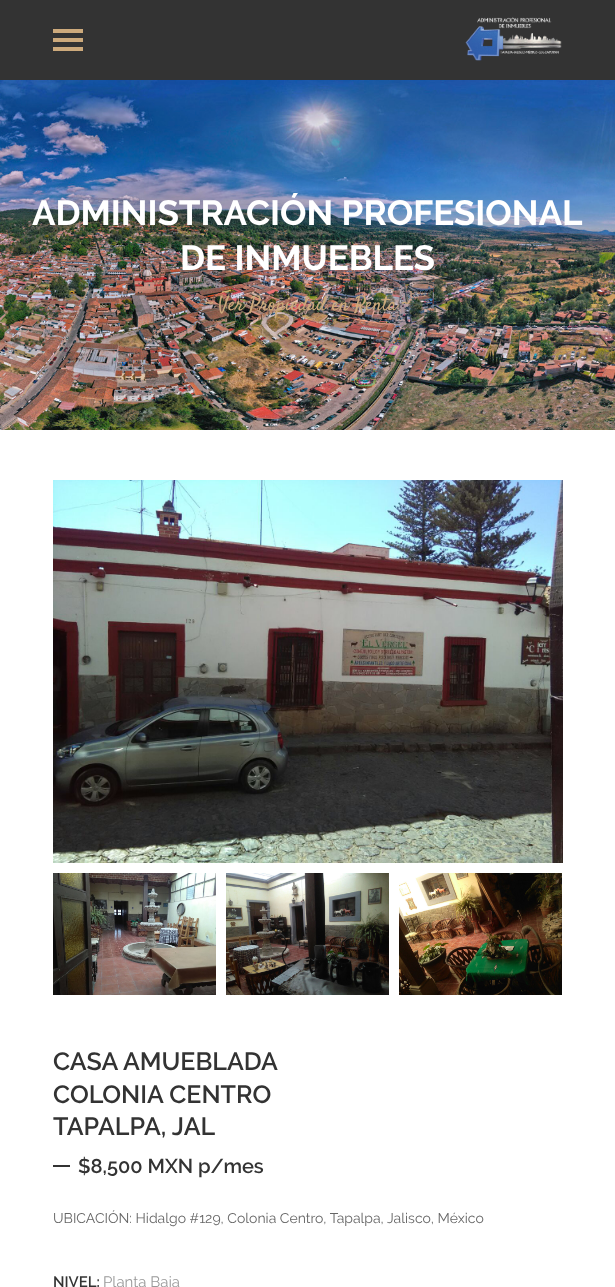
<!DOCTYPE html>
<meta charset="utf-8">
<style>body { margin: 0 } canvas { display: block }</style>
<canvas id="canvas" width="615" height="1287"></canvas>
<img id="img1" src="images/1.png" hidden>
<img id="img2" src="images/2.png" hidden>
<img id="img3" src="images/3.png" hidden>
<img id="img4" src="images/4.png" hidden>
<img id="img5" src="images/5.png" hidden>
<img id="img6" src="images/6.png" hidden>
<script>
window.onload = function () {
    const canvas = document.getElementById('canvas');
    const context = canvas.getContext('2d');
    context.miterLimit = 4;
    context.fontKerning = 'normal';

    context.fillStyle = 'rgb(255, 255, 255)';
    context.fillRect(0, 0, 615, 1287);
    context.fillStyle = 'rgb(51, 51, 51)';
    context.fillRect(0, 0, 615, 80);
    context.fillStyle = 'rgb(205, 170, 124)';
    context.fillRect(53, 29, 30, 4);
    context.fillRect(53, 38, 30, 4);
    context.fillRect(53, 47, 30, 4);
    context.drawImage(document.getElementById('img1'), 465, 17, 97, 44);
    context.drawImage(document.getElementById('img2'), 0, 80, 615, 350);
    context.drawImage(document.getElementById('img3'), 53, 480, 510, 383);
    context.drawImage(document.getElementById('img4'), 53, 873, 163, 122);
    context.drawImage(document.getElementById('img5'), 226, 873, 163, 122);
    context.drawImage(document.getElementById('img6'), 399, 873, 163, 122);
    context.fillStyle = 'rgb(51, 51, 51)';
    context.fillRect(53, 1165, 17, 2);
    context.font = 'bold 35px Raleway';
    context.fillStyle = 'rgb(255, 255, 255)';
    context.fillText('ADMINISTRACIÓN PROFESIONAL', 32, 225);
    context.fillText('DE INMUEBLES', 180, 270);
    context.font = '20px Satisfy';
    context.fillStyle = 'rgb(205, 170, 124)';
    context.fillText('~ Ver Propiedad en Renta ~', 206, 310);
    context.font = '600 25px Raleway';
    context.fillStyle = 'rgb(51, 51, 51)';
    context.fillText('CASA AMUEBLADA', 53, 1070);
    context.fillText('COLONIA CENTRO', 53, 1103);
    context.fillText('TAPALPA, JAL', 53, 1135);
    context.font = '600 20px Raleway';
    context.fillText('$8,500 MXN p/mes', 78, 1173);
    context.font = '14px Raleway';
    context.fillStyle = 'rgb(102, 102, 102)';
    context.fillText('UBICACIÓN: Hidalgo #129, Colonia Centro, Tapalpa, Jalisco, México', 53, 1223);
    context.font = '600 15px Raleway';
    context.fillStyle = 'rgb(51, 51, 51)';
    context.fillText('NIVEL:', 53, 1287);
    context.font = '15px Raleway';
    context.fillStyle = 'rgb(153, 153, 153)';
    context.fillText('Planta Baja', 103, 1287);
};
</script>
